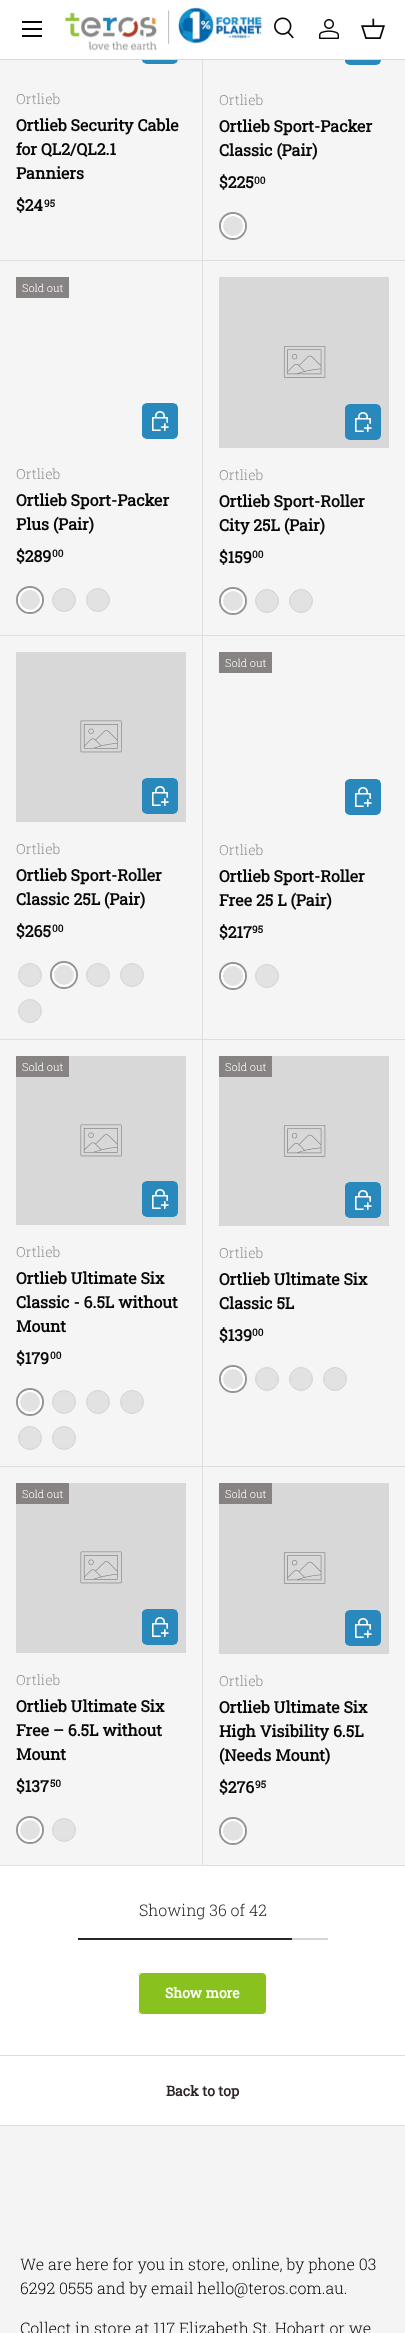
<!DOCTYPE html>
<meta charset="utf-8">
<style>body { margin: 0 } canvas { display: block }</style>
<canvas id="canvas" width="405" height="2333"></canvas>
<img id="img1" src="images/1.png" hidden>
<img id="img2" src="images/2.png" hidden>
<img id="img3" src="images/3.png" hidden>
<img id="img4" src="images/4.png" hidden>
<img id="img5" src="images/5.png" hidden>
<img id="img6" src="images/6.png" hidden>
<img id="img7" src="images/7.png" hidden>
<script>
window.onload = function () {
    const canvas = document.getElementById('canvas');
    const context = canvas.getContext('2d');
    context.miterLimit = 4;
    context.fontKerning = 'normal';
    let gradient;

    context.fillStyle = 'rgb(255, 255, 255)';
    context.fillRect(0, 0, 405, 2333);
    context.fillStyle = 'rgb(223, 222, 223)';
    context.beginPath();
    context.moveTo(203, -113);
    context.lineTo(203, 261);
    context.lineTo(202, 260);
    context.lineTo(202, -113);
    context.closePath();
    context.fill();
    context.fillStyle = 'rgb(245, 245, 245)';
    context.fillRect(0, 60, 202, 200);
    context.save();
    context.beginPath();
    context.roundRect(142, 28, 36, 36, 5);
    context.clip();
    gradient = context.createLinearGradient(74, 33, 178, 59);
    gradient.addColorStop(0.6, 'rgb(85, 161, 203)');
    gradient.addColorStop(0.6, 'rgb(41, 137, 189)');
    gradient.addColorStop(1, 'rgb(41, 137, 189)');
    context.fillStyle = gradient;
    context.fillRect(142, 60, 35, 3);
    context.restore();
    context.beginPath();
    context.roundRect(142.5, 28.5, 35, 35, 4.5);
    context.strokeStyle = 'rgb(41, 137, 189)';
    context.stroke();
    context.fillRect(203, 60, 202, 200);
    context.save();
    context.beginPath();
    context.roundRect(345, 29, 36, 36, 5);
    context.clip();
    gradient = context.createLinearGradient(277, 34, 381, 60);
    gradient.addColorStop(0.6, 'rgb(85, 161, 203)');
    gradient.addColorStop(0.6, 'rgb(41, 137, 189)');
    gradient.addColorStop(1, 'rgb(41, 137, 189)');
    context.fillStyle = gradient;
    context.fillRect(345, 60, 35, 4);
    context.restore();
    context.beginPath();
    context.roundRect(345.5, 29.5, 35, 35, 4.5);
    context.stroke();
    context.fillStyle = 'rgb(255, 255, 255)';
    context.fillRect(142, 0, 239, 59);
    context.fillStyle = 'rgb(218, 218, 218)';
    context.fillRect(0, 59, 405, 1);
    context.fillStyle = 'rgb(7, 7, 7)';
    context.fillRect(22, 21, 20, 2);
    context.fillRect(22, 35, 20, 2);
    context.fillRect(22, 28, 20, 2);
    context.drawImage(document.getElementById('img1'), 64, 7, 199, 44);
    context.drawImage(document.getElementById('img2'), 274, 17, 20, 22);
    context.drawImage(document.getElementById('img3'), 319, 19, 20, 20);
    context.drawImage(document.getElementById('img4'), 361, 18, 24, 21);
    context.fillStyle = 'rgba(44, 37, 40, 0.15)';
    context.beginPath();
    context.moveTo(203, 261);
    context.lineTo(0, 261);
    context.lineTo(0, 260);
    context.lineTo(202, 260);
    context.closePath();
    context.fill();
    context.fillStyle = 'rgb(223, 222, 223)';
    context.fillRect(203, 260, 202, 1);
    context.beginPath();
    context.arc(233, 226, 13, 0, 2 * Math.PI);
    context.strokeStyle = 'rgb(150, 146, 148)';
    context.lineWidth = 2;
    context.stroke();
    context.beginPath();
    context.arc(233, 226, 11, 0, 2 * Math.PI);
    context.strokeStyle = 'rgb(255, 255, 255)';
    context.stroke();
    context.fillStyle = 'rgba(7, 7, 7, 0.08)';
    context.beginPath();
    context.arc(233, 226, 10, 0, 2 * Math.PI);
    context.fill();
    context.fillStyle = 'rgb(223, 222, 223)';
    context.beginPath();
    context.moveTo(203, 261);
    context.lineTo(203, 636);
    context.lineTo(202, 635);
    context.lineTo(202, 261);
    context.closePath();
    context.fill();
    context.fillStyle = 'rgba(44, 37, 40, 0.15)';
    context.beginPath();
    context.moveTo(203, 636);
    context.lineTo(0, 636);
    context.lineTo(0, 635);
    context.lineTo(202, 635);
    context.closePath();
    context.fill();
    context.fillStyle = 'rgb(245, 245, 245)';
    context.fillRect(0, 261, 202, 374);
    context.fillStyle = 'rgb(135, 131, 131)';
    context.fillRect(16, 277, 53, 21);
    context.save();
    context.beginPath();
    context.roundRect(142, 403, 36, 36, 5);
    context.clip();
    gradient = context.createLinearGradient(74, 408, 178, 434);
    gradient.addColorStop(0.6, 'rgb(85, 161, 203)');
    gradient.addColorStop(0.6, 'rgb(41, 137, 189)');
    gradient.addColorStop(1, 'rgb(41, 137, 189)');
    context.fillStyle = gradient;
    context.fillRect(142, 404, 35, 34);
    context.restore();
    context.beginPath();
    context.roundRect(142.5, 403.5, 35, 35, 4.5);
    context.strokeStyle = 'rgb(41, 137, 189)';
    context.lineWidth = 1;
    context.stroke();
    context.drawImage(document.getElementById('img5'), 152, 411, 17, 20);
    context.beginPath();
    context.arc(30, 600, 13, 0, 2 * Math.PI);
    context.strokeStyle = 'rgb(150, 146, 148)';
    context.lineWidth = 2;
    context.stroke();
    context.beginPath();
    context.arc(30, 600, 11, 0, 2 * Math.PI);
    context.strokeStyle = 'rgb(255, 255, 255)';
    context.stroke();
    context.fillStyle = 'rgba(7, 7, 7, 0.08)';
    context.beginPath();
    context.arc(30, 600, 10, 0, 2 * Math.PI);
    context.fill();
    context.beginPath();
    context.arc(64, 600, 11.5, 0, 2 * Math.PI);
    context.strokeStyle = 'rgb(213, 211, 212)';
    context.lineWidth = 1;
    context.stroke();
    context.beginPath();
    context.arc(64, 600, 11, 0, 2 * Math.PI);
    context.fill();
    context.beginPath();
    context.arc(98, 600, 11.5, 0, 2 * Math.PI);
    context.stroke();
    context.beginPath();
    context.arc(98, 600, 11, 0, 2 * Math.PI);
    context.fill();
    context.fillStyle = 'rgb(223, 222, 223)';
    context.fillRect(203, 635, 202, 1);
    context.fillStyle = 'rgb(245, 245, 245)';
    context.fillRect(203, 261, 202, 374);
    context.fillStyle = 'rgb(216, 216, 216)';
    context.fillRect(219, 277, 170, 171);
    context.drawImage(document.getElementById('img6'), 283, 346, 43, 32);
    context.save();
    context.beginPath();
    context.roundRect(345, 404, 36, 36, 5);
    context.clip();
    gradient = context.createLinearGradient(277, 409, 381, 435);
    gradient.addColorStop(0.6, 'rgb(85, 161, 203)');
    gradient.addColorStop(0.6, 'rgb(41, 137, 189)');
    gradient.addColorStop(1, 'rgb(41, 137, 189)');
    context.fillStyle = gradient;
    context.fillRect(345, 405, 35, 34);
    context.restore();
    context.beginPath();
    context.roundRect(345.5, 404.5, 35, 35, 4.5);
    context.strokeStyle = 'rgb(41, 137, 189)';
    context.stroke();
    context.drawImage(document.getElementById('img5'), 355, 412, 17, 20);
    context.beginPath();
    context.arc(233, 601, 13, 0, 2 * Math.PI);
    context.strokeStyle = 'rgb(150, 146, 148)';
    context.lineWidth = 2;
    context.stroke();
    context.beginPath();
    context.arc(233, 601, 11, 0, 2 * Math.PI);
    context.strokeStyle = 'rgb(255, 255, 255)';
    context.stroke();
    context.fillStyle = 'rgba(7, 7, 7, 0.08)';
    context.beginPath();
    context.arc(233, 601, 10, 0, 2 * Math.PI);
    context.fill();
    context.beginPath();
    context.arc(267, 601, 11.5, 0, 2 * Math.PI);
    context.strokeStyle = 'rgb(213, 211, 212)';
    context.lineWidth = 1;
    context.stroke();
    context.beginPath();
    context.arc(267, 601, 11, 0, 2 * Math.PI);
    context.fill();
    context.beginPath();
    context.arc(301, 601, 11.5, 0, 2 * Math.PI);
    context.stroke();
    context.beginPath();
    context.arc(301, 601, 11, 0, 2 * Math.PI);
    context.fill();
    context.fillStyle = 'rgb(223, 222, 223)';
    context.beginPath();
    context.moveTo(203, 636);
    context.lineTo(203, 1040);
    context.lineTo(202, 1039);
    context.lineTo(202, 636);
    context.closePath();
    context.fill();
    context.fillStyle = 'rgba(44, 37, 40, 0.15)';
    context.beginPath();
    context.moveTo(203, 1040);
    context.lineTo(0, 1040);
    context.lineTo(0, 1039);
    context.lineTo(202, 1039);
    context.closePath();
    context.fill();
    context.fillStyle = 'rgb(245, 245, 245)';
    context.fillRect(0, 636, 202, 403);
    context.fillStyle = 'rgb(216, 216, 216)';
    context.fillRect(16, 652, 170, 170);
    context.drawImage(document.getElementById('img7'), 80, 720, 42, 33);
    context.save();
    context.beginPath();
    context.roundRect(142, 778, 36, 36, 5);
    context.clip();
    gradient = context.createLinearGradient(74, 783, 178, 809);
    gradient.addColorStop(0.6, 'rgb(85, 161, 203)');
    gradient.addColorStop(0.6, 'rgb(41, 137, 189)');
    gradient.addColorStop(1, 'rgb(41, 137, 189)');
    context.fillStyle = gradient;
    context.fillRect(142, 779, 35, 34);
    context.restore();
    context.beginPath();
    context.roundRect(142.5, 778.5, 35, 35, 4.5);
    context.strokeStyle = 'rgb(41, 137, 189)';
    context.stroke();
    context.drawImage(document.getElementById('img5'), 152, 786, 17, 20);
    context.beginPath();
    context.arc(30, 975, 11.5, 0, 2 * Math.PI);
    context.strokeStyle = 'rgb(213, 211, 212)';
    context.stroke();
    context.fillStyle = 'rgba(7, 7, 7, 0.08)';
    context.beginPath();
    context.arc(30, 975, 11, 0, 2 * Math.PI);
    context.fill();
    context.beginPath();
    context.arc(64, 975, 13, 0, 2 * Math.PI);
    context.strokeStyle = 'rgb(150, 146, 148)';
    context.lineWidth = 2;
    context.stroke();
    context.beginPath();
    context.arc(64, 975, 11, 0, 2 * Math.PI);
    context.strokeStyle = 'rgb(255, 255, 255)';
    context.stroke();
    context.beginPath();
    context.arc(64, 975, 10, 0, 2 * Math.PI);
    context.fill();
    context.beginPath();
    context.arc(98, 975, 11.5, 0, 2 * Math.PI);
    context.strokeStyle = 'rgb(213, 211, 212)';
    context.lineWidth = 1;
    context.stroke();
    context.beginPath();
    context.arc(98, 975, 11, 0, 2 * Math.PI);
    context.fill();
    context.beginPath();
    context.arc(132, 975, 11.5, 0, 2 * Math.PI);
    context.stroke();
    context.beginPath();
    context.arc(132, 975, 11, 0, 2 * Math.PI);
    context.fill();
    context.beginPath();
    context.arc(30, 1011, 11.5, 0, 2 * Math.PI);
    context.stroke();
    context.beginPath();
    context.arc(30, 1011, 11, 0, 2 * Math.PI);
    context.fill();
    context.fillStyle = 'rgb(223, 222, 223)';
    context.fillRect(203, 1039, 202, 1);
    context.fillStyle = 'rgb(245, 245, 245)';
    context.fillRect(203, 636, 202, 403);
    context.fillStyle = 'rgb(135, 131, 131)';
    context.fillRect(219, 652, 53, 21);
    context.save();
    context.beginPath();
    context.roundRect(345, 779, 36, 36, 5);
    context.clip();
    gradient = context.createLinearGradient(277, 784, 381, 810);
    gradient.addColorStop(0.6, 'rgb(85, 161, 203)');
    gradient.addColorStop(0.6, 'rgb(41, 137, 189)');
    gradient.addColorStop(1, 'rgb(41, 137, 189)');
    context.fillStyle = gradient;
    context.fillRect(345, 780, 35, 34);
    context.restore();
    context.beginPath();
    context.roundRect(345.5, 779.5, 35, 35, 4.5);
    context.strokeStyle = 'rgb(41, 137, 189)';
    context.stroke();
    context.drawImage(document.getElementById('img5'), 355, 787, 17, 20);
    context.beginPath();
    context.arc(233, 976, 13, 0, 2 * Math.PI);
    context.strokeStyle = 'rgb(150, 146, 148)';
    context.lineWidth = 2;
    context.stroke();
    context.beginPath();
    context.arc(233, 976, 11, 0, 2 * Math.PI);
    context.strokeStyle = 'rgb(255, 255, 255)';
    context.stroke();
    context.fillStyle = 'rgba(7, 7, 7, 0.08)';
    context.beginPath();
    context.arc(233, 976, 10, 0, 2 * Math.PI);
    context.fill();
    context.beginPath();
    context.arc(267, 976, 11.5, 0, 2 * Math.PI);
    context.strokeStyle = 'rgb(213, 211, 212)';
    context.lineWidth = 1;
    context.stroke();
    context.beginPath();
    context.arc(267, 976, 11, 0, 2 * Math.PI);
    context.fill();
    context.fillStyle = 'rgb(223, 222, 223)';
    context.beginPath();
    context.moveTo(203, 1040);
    context.lineTo(203, 1467);
    context.lineTo(202, 1466);
    context.lineTo(202, 1040);
    context.closePath();
    context.fill();
    context.fillStyle = 'rgba(44, 37, 40, 0.15)';
    context.beginPath();
    context.moveTo(203, 1467);
    context.lineTo(0, 1467);
    context.lineTo(0, 1466);
    context.lineTo(202, 1466);
    context.closePath();
    context.fill();
    context.fillStyle = 'rgb(245, 245, 245)';
    context.fillRect(0, 1040, 202, 426);
    context.fillStyle = 'rgb(216, 216, 216)';
    context.fillRect(16, 1056, 170, 169);
    context.drawImage(document.getElementById('img7'), 80, 1124, 42, 33);
    context.fillStyle = 'rgb(135, 131, 131)';
    context.fillRect(16, 1056, 53, 21);
    context.save();
    context.beginPath();
    context.roundRect(142, 1181, 36, 36, 5);
    context.clip();
    gradient = context.createLinearGradient(74, 1186, 178, 1212);
    gradient.addColorStop(0.6, 'rgb(85, 161, 203)');
    gradient.addColorStop(0.6, 'rgb(41, 137, 189)');
    gradient.addColorStop(1, 'rgb(41, 137, 189)');
    context.fillStyle = gradient;
    context.fillRect(142, 1182, 35, 34);
    context.restore();
    context.beginPath();
    context.roundRect(142.5, 1181.5, 35, 35, 4.5);
    context.strokeStyle = 'rgb(41, 137, 189)';
    context.stroke();
    context.drawImage(document.getElementById('img5'), 152, 1189, 17, 20);
    context.beginPath();
    context.arc(30, 1402, 13, 0, 2 * Math.PI);
    context.strokeStyle = 'rgb(150, 146, 148)';
    context.lineWidth = 2;
    context.stroke();
    context.beginPath();
    context.arc(30, 1402, 11, 0, 2 * Math.PI);
    context.strokeStyle = 'rgb(255, 255, 255)';
    context.stroke();
    context.fillStyle = 'rgba(7, 7, 7, 0.08)';
    context.beginPath();
    context.arc(30, 1402, 10, 0, 2 * Math.PI);
    context.fill();
    context.beginPath();
    context.arc(64, 1402, 11.5, 0, 2 * Math.PI);
    context.strokeStyle = 'rgb(213, 211, 212)';
    context.lineWidth = 1;
    context.stroke();
    context.beginPath();
    context.arc(64, 1402, 11, 0, 2 * Math.PI);
    context.fill();
    context.beginPath();
    context.arc(98, 1402, 11.5, 0, 2 * Math.PI);
    context.stroke();
    context.beginPath();
    context.arc(98, 1402, 11, 0, 2 * Math.PI);
    context.fill();
    context.beginPath();
    context.arc(132, 1402, 11.5, 0, 2 * Math.PI);
    context.stroke();
    context.beginPath();
    context.arc(132, 1402, 11, 0, 2 * Math.PI);
    context.fill();
    context.beginPath();
    context.arc(30, 1438, 11.5, 0, 2 * Math.PI);
    context.stroke();
    context.beginPath();
    context.arc(30, 1438, 11, 0, 2 * Math.PI);
    context.fill();
    context.beginPath();
    context.arc(64, 1438, 11.5, 0, 2 * Math.PI);
    context.stroke();
    context.beginPath();
    context.arc(64, 1438, 11, 0, 2 * Math.PI);
    context.fill();
    context.fillStyle = 'rgb(223, 222, 223)';
    context.fillRect(203, 1466, 202, 1);
    context.fillStyle = 'rgb(245, 245, 245)';
    context.fillRect(203, 1040, 202, 426);
    context.fillStyle = 'rgb(216, 216, 216)';
    context.fillRect(219, 1056, 170, 170);
    context.drawImage(document.getElementById('img6'), 283, 1125, 43, 32);
    context.fillStyle = 'rgb(135, 131, 131)';
    context.fillRect(219, 1056, 53, 21);
    context.save();
    context.beginPath();
    context.roundRect(345, 1182, 36, 36, 5);
    context.clip();
    gradient = context.createLinearGradient(277, 1187, 381, 1213);
    gradient.addColorStop(0.6, 'rgb(85, 161, 203)');
    gradient.addColorStop(0.6, 'rgb(41, 137, 189)');
    gradient.addColorStop(1, 'rgb(41, 137, 189)');
    context.fillStyle = gradient;
    context.fillRect(345, 1183, 35, 34);
    context.restore();
    context.beginPath();
    context.roundRect(345.5, 1182.5, 35, 35, 4.5);
    context.strokeStyle = 'rgb(41, 137, 189)';
    context.stroke();
    context.drawImage(document.getElementById('img5'), 355, 1190, 17, 20);
    context.beginPath();
    context.arc(233, 1379, 13, 0, 2 * Math.PI);
    context.strokeStyle = 'rgb(150, 146, 148)';
    context.lineWidth = 2;
    context.stroke();
    context.beginPath();
    context.arc(233, 1379, 11, 0, 2 * Math.PI);
    context.strokeStyle = 'rgb(255, 255, 255)';
    context.stroke();
    context.fillStyle = 'rgba(7, 7, 7, 0.08)';
    context.beginPath();
    context.arc(233, 1379, 10, 0, 2 * Math.PI);
    context.fill();
    context.beginPath();
    context.arc(267, 1379, 11.5, 0, 2 * Math.PI);
    context.strokeStyle = 'rgb(213, 211, 212)';
    context.lineWidth = 1;
    context.stroke();
    context.beginPath();
    context.arc(267, 1379, 11, 0, 2 * Math.PI);
    context.fill();
    context.beginPath();
    context.arc(301, 1379, 11.5, 0, 2 * Math.PI);
    context.stroke();
    context.beginPath();
    context.arc(301, 1379, 11, 0, 2 * Math.PI);
    context.fill();
    context.beginPath();
    context.arc(335, 1379, 11.5, 0, 2 * Math.PI);
    context.stroke();
    context.beginPath();
    context.arc(335, 1379, 11, 0, 2 * Math.PI);
    context.fill();
    context.fillStyle = 'rgb(223, 222, 223)';
    context.beginPath();
    context.moveTo(203, 1467);
    context.lineTo(203, 1866);
    context.lineTo(202, 1865);
    context.lineTo(202, 1467);
    context.closePath();
    context.fill();
    context.fillStyle = 'rgba(44, 37, 40, 0.15)';
    context.beginPath();
    context.moveTo(203, 1866);
    context.lineTo(0, 1866);
    context.lineTo(0, 1865);
    context.lineTo(202, 1865);
    context.closePath();
    context.fill();
    context.fillStyle = 'rgb(245, 245, 245)';
    context.fillRect(0, 1467, 202, 398);
    context.fillStyle = 'rgb(216, 216, 216)';
    context.fillRect(16, 1483, 170, 170);
    context.drawImage(document.getElementById('img7'), 80, 1551, 42, 33);
    context.fillStyle = 'rgb(135, 131, 131)';
    context.fillRect(16, 1483, 53, 21);
    context.save();
    context.beginPath();
    context.roundRect(142, 1609, 36, 36, 5);
    context.clip();
    gradient = context.createLinearGradient(74, 1614, 178, 1640);
    gradient.addColorStop(0.6, 'rgb(85, 161, 203)');
    gradient.addColorStop(0.6, 'rgb(41, 137, 189)');
    gradient.addColorStop(1, 'rgb(41, 137, 189)');
    context.fillStyle = gradient;
    context.fillRect(142, 1610, 35, 34);
    context.restore();
    context.beginPath();
    context.roundRect(142.5, 1609.5, 35, 35, 4.5);
    context.strokeStyle = 'rgb(41, 137, 189)';
    context.stroke();
    context.drawImage(document.getElementById('img5'), 152, 1617, 17, 20);
    context.beginPath();
    context.arc(30, 1830, 13, 0, 2 * Math.PI);
    context.strokeStyle = 'rgb(150, 146, 148)';
    context.lineWidth = 2;
    context.stroke();
    context.beginPath();
    context.arc(30, 1830, 11, 0, 2 * Math.PI);
    context.strokeStyle = 'rgb(255, 255, 255)';
    context.stroke();
    context.fillStyle = 'rgba(7, 7, 7, 0.08)';
    context.beginPath();
    context.arc(30, 1830, 10, 0, 2 * Math.PI);
    context.fill();
    context.beginPath();
    context.arc(64, 1830, 11.5, 0, 2 * Math.PI);
    context.strokeStyle = 'rgb(213, 211, 212)';
    context.lineWidth = 1;
    context.stroke();
    context.beginPath();
    context.arc(64, 1830, 11, 0, 2 * Math.PI);
    context.fill();
    context.fillStyle = 'rgb(223, 222, 223)';
    context.fillRect(203, 1865, 202, 1);
    context.fillStyle = 'rgb(245, 245, 245)';
    context.fillRect(203, 1467, 202, 398);
    context.fillStyle = 'rgb(216, 216, 216)';
    context.fillRect(219, 1483, 170, 171);
    context.drawImage(document.getElementById('img6'), 283, 1552, 43, 32);
    context.fillStyle = 'rgb(135, 131, 131)';
    context.fillRect(219, 1483, 53, 21);
    context.save();
    context.beginPath();
    context.roundRect(345, 1610, 36, 36, 5);
    context.clip();
    gradient = context.createLinearGradient(277, 1615, 381, 1641);
    gradient.addColorStop(0.6, 'rgb(85, 161, 203)');
    gradient.addColorStop(0.6, 'rgb(41, 137, 189)');
    gradient.addColorStop(1, 'rgb(41, 137, 189)');
    context.fillStyle = gradient;
    context.fillRect(345, 1611, 35, 34);
    context.restore();
    context.beginPath();
    context.roundRect(345.5, 1610.5, 35, 35, 4.5);
    context.strokeStyle = 'rgb(41, 137, 189)';
    context.stroke();
    context.drawImage(document.getElementById('img5'), 355, 1618, 17, 20);
    context.beginPath();
    context.arc(233, 1831, 13, 0, 2 * Math.PI);
    context.strokeStyle = 'rgb(150, 146, 148)';
    context.lineWidth = 2;
    context.stroke();
    context.beginPath();
    context.arc(233, 1831, 11, 0, 2 * Math.PI);
    context.strokeStyle = 'rgb(255, 255, 255)';
    context.stroke();
    context.fillStyle = 'rgba(7, 7, 7, 0.08)';
    context.beginPath();
    context.arc(233, 1831, 10, 0, 2 * Math.PI);
    context.fill();
    context.fillStyle = 'rgb(213, 211, 212)';
    context.fillRect(292, 1938, 36, 2);
    context.fillStyle = 'rgb(44, 37, 40)';
    context.fillRect(78, 1938, 214, 2);
    context.save();
    context.beginPath();
    context.roundRect(138, 1972, 129, 43, 5);
    context.clip();
    gradient = context.createLinearGradient(-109, 1948, 260, 2039);
    gradient.addColorStop(0.6, 'rgba(255, 255, 255, 0.07)');
    gradient.addColorStop(0.6, 'rgb(137, 194, 30)');
    gradient.addColorStop(1, 'rgb(137, 194, 30)');
    context.fillStyle = gradient;
    context.fillRect(138, 1973, 128, 41);
    context.restore();
    context.beginPath();
    context.roundRect(138.5, 1972.5, 128, 42, 4.5);
    context.lineWidth = 1;
    context.stroke();
    context.fillStyle = 'rgb(223, 222, 223)';
    context.fillRect(0, 2055, 405, 1);
    context.fillRect(0, 2125, 405, 1);
    context.fillStyle = 'rgb(244, 244, 244)';
    context.fillRect(0, 2126, 405, 207);
    context.font = '300 14px Roboto Slab';
    context.fillStyle = 'rgb(145, 145, 145)';
    context.fillText('Ortlieb', 16, 104);
    context.font = 'bold 16px Roboto Slab';
    context.fillStyle = 'rgb(7, 7, 7)';
    context.fillText('Ortlieb Security Cable', 16, 131);
    context.fillText('for QL2/QL2.1', 16, 155);
    context.fillText('Panniers', 16, 179);
    context.fillText('$24', 16, 211);
    context.font = 'bold 10px Roboto Slab';
    context.fillText('95', 44, 207);
    context.font = '300 14px Roboto Slab';
    context.fillStyle = 'rgb(145, 145, 145)';
    context.fillText('Ortlieb', 219, 105);
    context.font = 'bold 16px Roboto Slab';
    context.fillStyle = 'rgb(7, 7, 7)';
    context.fillText('Ortlieb Sport-Packer', 219, 132);
    context.fillText('Classic (Pair)', 219, 156);
    context.fillText('$225', 219, 188);
    context.font = 'bold 10px Roboto Slab';
    context.fillText('00', 254, 184);
    context.font = '300 11px Roboto Slab';
    context.fillStyle = 'rgb(255, 255, 255)';
    context.fillText('Sold out', 22, 292);
    context.font = '300 14px Roboto Slab';
    context.fillStyle = 'rgb(145, 145, 145)';
    context.fillText('Ortlieb', 16, 479);
    context.font = 'bold 16px Roboto Slab';
    context.fillStyle = 'rgb(7, 7, 7)';
    context.fillText('Ortlieb Sport-Packer', 16, 506);
    context.fillText('Plus (Pair)', 16, 530);
    context.fillText('$289', 16, 562);
    context.font = 'bold 10px Roboto Slab';
    context.fillText('00', 52, 557);
    context.font = '300 14px Roboto Slab';
    context.fillStyle = 'rgb(145, 145, 145)';
    context.fillText('Ortlieb', 219, 480);
    context.font = 'bold 16px Roboto Slab';
    context.fillStyle = 'rgb(7, 7, 7)';
    context.fillText('Ortlieb Sport-Roller', 219, 507);
    context.fillText('City 25L (Pair)', 219, 531);
    context.fillText('$159', 219, 563);
    context.font = 'bold 10px Roboto Slab';
    context.fillText('00', 252, 558);
    context.font = '300 14px Roboto Slab';
    context.fillStyle = 'rgb(145, 145, 145)';
    context.fillText('Ortlieb', 16, 854);
    context.font = 'bold 16px Roboto Slab';
    context.fillStyle = 'rgb(7, 7, 7)';
    context.fillText('Ortlieb Sport-Roller', 16, 881);
    context.fillText('Classic 25L (Pair)', 16, 905);
    context.fillText('$265', 16, 937);
    context.font = 'bold 10px Roboto Slab';
    context.fillText('00', 52, 932);
    context.font = '300 11px Roboto Slab';
    context.fillStyle = 'rgb(255, 255, 255)';
    context.fillText('Sold out', 225, 667);
    context.font = '300 14px Roboto Slab';
    context.fillStyle = 'rgb(145, 145, 145)';
    context.fillText('Ortlieb', 219, 855);
    context.font = 'bold 16px Roboto Slab';
    context.fillStyle = 'rgb(7, 7, 7)';
    context.fillText('Ortlieb Sport-Roller', 219, 882);
    context.fillText('Free 25 L (Pair)', 219, 906);
    context.fillText('$217', 219, 938);
    context.font = 'bold 10px Roboto Slab';
    context.fillText('95', 252, 933);
    context.font = '300 11px Roboto Slab';
    context.fillStyle = 'rgb(255, 255, 255)';
    context.fillText('Sold out', 22, 1071);
    context.font = '300 14px Roboto Slab';
    context.fillStyle = 'rgb(145, 145, 145)';
    context.fillText('Ortlieb', 16, 1257);
    context.font = 'bold 16px Roboto Slab';
    context.fillStyle = 'rgb(7, 7, 7)';
    context.fillText('Ortlieb Ultimate Six', 16, 1284);
    context.fillText('Classic - 6.5L without', 16, 1308);
    context.fillText('Mount', 16, 1332);
    context.fillText('$179', 16, 1364);
    context.font = 'bold 10px Roboto Slab';
    context.fillText('00', 50, 1359);
    context.font = '300 11px Roboto Slab';
    context.fillStyle = 'rgb(255, 255, 255)';
    context.fillText('Sold out', 225, 1071);
    context.font = '300 14px Roboto Slab';
    context.fillStyle = 'rgb(145, 145, 145)';
    context.fillText('Ortlieb', 219, 1258);
    context.font = 'bold 16px Roboto Slab';
    context.fillStyle = 'rgb(7, 7, 7)';
    context.fillText('Ortlieb Ultimate Six', 219, 1285);
    context.fillText('Classic 5L', 219, 1309);
    context.fillText('$139', 219, 1341);
    context.font = 'bold 10px Roboto Slab';
    context.fillText('00', 252, 1336);
    context.font = '300 11px Roboto Slab';
    context.fillStyle = 'rgb(255, 255, 255)';
    context.fillText('Sold out', 22, 1498);
    context.font = '300 14px Roboto Slab';
    context.fillStyle = 'rgb(145, 145, 145)';
    context.fillText('Ortlieb', 16, 1685);
    context.font = 'bold 16px Roboto Slab';
    context.fillStyle = 'rgb(7, 7, 7)';
    context.fillText('Ortlieb Ultimate Six', 16, 1712);
    context.fillText('Free – 6.5L without', 16, 1736);
    context.fillText('Mount', 16, 1760);
    context.fillText('$137', 16, 1792);
    context.font = 'bold 10px Roboto Slab';
    context.fillText('50', 50, 1787);
    context.font = '300 11px Roboto Slab';
    context.fillStyle = 'rgb(255, 255, 255)';
    context.fillText('Sold out', 225, 1498);
    context.font = '300 14px Roboto Slab';
    context.fillStyle = 'rgb(145, 145, 145)';
    context.fillText('Ortlieb', 219, 1686);
    context.font = 'bold 16px Roboto Slab';
    context.fillStyle = 'rgb(7, 7, 7)';
    context.fillText('Ortlieb Ultimate Six', 219, 1713);
    context.fillText('High Visibility 6.5L', 219, 1737);
    context.fillText('(Needs Mount)', 219, 1761);
    context.fillText('$276', 219, 1793);
    context.font = 'bold 10px Roboto Slab';
    context.fillText('95', 255, 1788);
    context.font = '300 16px Roboto Slab';
    context.fillStyle = 'rgb(44, 37, 40)';
    context.fillText('Showing 36 of 42', 139, 1916);
    context.font = 'bold 14px Roboto Slab';
    context.fillStyle = 'rgb(255, 255, 255)';
    context.fillText('Show more', 165, 1998);
    context.fillStyle = 'rgb(44, 37, 40)';
    context.fillText('Back to top', 166, 2096);
    context.font = '300 16px Roboto Slab';
    context.fillStyle = 'rgb(7, 7, 7)';
    context.fillText('We are here for you in store, online, by phone 03', 20, 2270);
    context.fillText('6292 0555 and by email hello@teros.com.au.', 20, 2294);
    context.fillText('Collect in store at 117 Elizabeth St, Hobart or we', 20, 2334);
};
</script>
